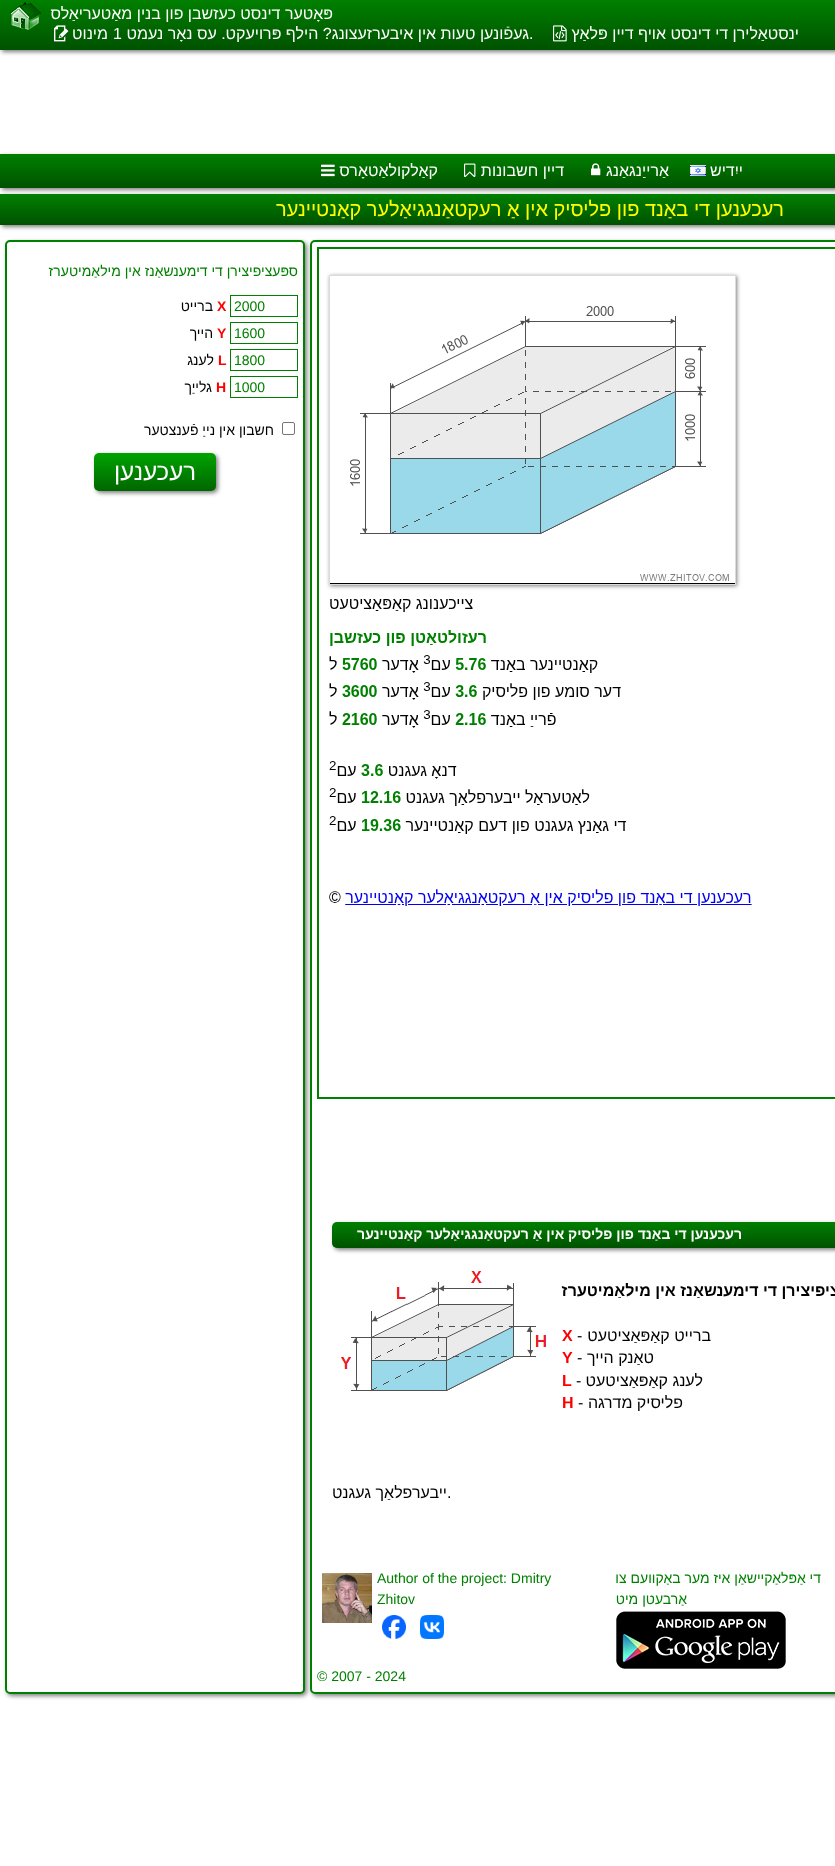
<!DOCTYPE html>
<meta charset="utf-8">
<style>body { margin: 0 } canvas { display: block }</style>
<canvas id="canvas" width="835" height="1866"></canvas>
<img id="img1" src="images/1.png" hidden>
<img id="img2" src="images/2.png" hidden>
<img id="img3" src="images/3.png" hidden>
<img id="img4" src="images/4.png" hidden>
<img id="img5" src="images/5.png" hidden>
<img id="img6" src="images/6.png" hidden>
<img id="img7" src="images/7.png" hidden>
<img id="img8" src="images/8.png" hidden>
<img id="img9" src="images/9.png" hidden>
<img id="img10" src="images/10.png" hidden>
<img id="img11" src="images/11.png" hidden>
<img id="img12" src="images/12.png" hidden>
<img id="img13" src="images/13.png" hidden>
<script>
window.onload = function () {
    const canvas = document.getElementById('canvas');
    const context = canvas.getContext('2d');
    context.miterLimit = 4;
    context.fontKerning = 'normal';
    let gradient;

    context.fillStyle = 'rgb(255, 255, 255)';
    context.fillRect(0, 0, 835, 1866);
    context.fillStyle = 'rgba(0, 0, 0, 0.5)';
    context.filter = 'blur(2px)';
    context.beginPath();
    context.rect(2, 2, 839, 50);
    context.fill();
    context.filter = 'none';
    gradient = context.createLinearGradient(530, 0, 530, 50);
    gradient.addColorStop(0, 'rgb(0, 128, 0)');
    gradient.addColorStop(1, 'rgb(0, 82, 0)');
    context.fillStyle = gradient;
    context.fillRect(0, 0, 835, 50);
    context.drawImage(document.getElementById('img1'), 10, 2, 31, 29);
    context.drawImage(document.getElementById('img2'), 553, 25, 14, 17);
    context.drawImage(document.getElementById('img3'), 54, 25, 15, 17);
    context.fillStyle = 'rgba(0, 0, 0, 0.5)';
    context.filter = 'blur(2px)';
    context.beginPath();
    context.rect(2, 196, 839, 31);
    context.fill();
    context.filter = 'none';
    gradient = context.createLinearGradient(530, 194, 530, 225);
    gradient.addColorStop(0, 'rgb(0, 128, 0)');
    gradient.addColorStop(1, 'rgb(0, 82, 0)');
    context.fillStyle = gradient;
    context.fillRect(0, 194, 835, 31);
    context.fillStyle = 'rgba(0, 0, 0, 0.5)';
    context.filter = 'blur(2px)';
    context.beginPath();
    context.rect(2, 156, 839, 34);
    context.fill();
    context.filter = 'none';
    gradient = context.createLinearGradient(530, 154, 530, 188);
    gradient.addColorStop(0, 'rgb(0, 128, 0)');
    gradient.addColorStop(1, 'rgb(0, 82, 0)');
    context.fillStyle = gradient;
    context.fillRect(0, 154, 835, 34);
    context.drawImage(document.getElementById('img4'), 690, 165, 16, 11);
    context.drawImage(document.getElementById('img5'), 591, 163, 10, 13);
    context.drawImage(document.getElementById('img6'), 464, 163, 12, 14);
    context.drawImage(document.getElementById('img7'), 321, 164, 14, 13);
    context.fillStyle = 'rgba(0, 0, 0, 0.5)';
    context.filter = 'blur(2px)';
    context.beginPath();
    context.roundRect(7, 242, 300, 1454, 5);
    context.fill();
    context.filter = 'none';
    context.fillStyle = 'rgb(255, 255, 255)';
    context.beginPath();
    context.roundRect(6, 241, 298, 1452, 4);
    context.fill();
    context.strokeStyle = 'rgb(0, 128, 0)';
    context.lineWidth = 2;
    context.stroke();
    context.lineWidth = 1;
    context.strokeRect(230.5, 295.5, 67, 21);
    context.strokeRect(230.5, 322.5, 67, 21);
    context.strokeRect(230.5, 349.5, 67, 21);
    context.strokeRect(230.5, 376.5, 67, 21);
    context.beginPath();
    context.roundRect(282.5, 422.5, 12, 12, 1.5);
    context.strokeStyle = 'rgb(118, 118, 118)';
    context.stroke();
    context.fillStyle = 'rgba(0, 0, 0, 0.5)';
    context.filter = 'blur(2px)';
    context.beginPath();
    context.roundRect(96, 455, 122, 38, 5);
    context.fill();
    context.filter = 'none';
    gradient = context.createLinearGradient(155, 453, 155, 491);
    gradient.addColorStop(0, 'rgb(0, 163, 0)');
    gradient.addColorStop(1, 'rgb(0, 102, 0)');
    context.fillStyle = gradient;
    context.beginPath();
    context.roundRect(94, 453, 122, 38, 5);
    context.fill();
    context.fillStyle = 'rgba(0, 0, 0, 0.5)';
    context.filter = 'blur(2px)';
    context.beginPath();
    context.roundRect(312, 242, 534, 1454, 5);
    context.fill();
    context.filter = 'none';
    context.fillStyle = 'rgb(255, 255, 255)';
    context.beginPath();
    context.roundRect(311, 241, 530, 1452, 4);
    context.fill();
    context.strokeStyle = 'rgb(0, 128, 0)';
    context.lineWidth = 2;
    context.stroke();
    context.strokeRect(318, 248, 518, 850);
    context.drawImage(document.getElementById('img8'), 326, 272, 426, 634);
    context.fillStyle = 'rgba(0, 0, 0, 0.5)';
    context.filter = 'blur(2px)';
    context.beginPath();
    context.roundRect(334, 1224, 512, 26, 5);
    context.fill();
    context.filter = 'none';
    gradient = context.createLinearGradient(680, 1222, 680, 1248);
    gradient.addColorStop(0, 'rgb(0, 128, 0)');
    gradient.addColorStop(1, 'rgb(0, 82, 0)');
    context.fillStyle = gradient;
    context.beginPath();
    context.roundRect(332, 1222, 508, 26, 5);
    context.fill();
    context.drawImage(document.getElementById('img9'), 341, 1271, 206, 120);
    context.drawImage(document.getElementById('img10'), 616, 1611, 170, 58);
    context.drawImage(document.getElementById('img11'), 322, 1573, 50, 50);
    context.drawImage(document.getElementById('img12'), 420, 1615, 24, 24);
    context.drawImage(document.getElementById('img13'), 382, 1615, 24, 24);
    context.direction = 'rtl';
    context.font = '16px Liberation Sans';
    context.fillStyle = 'rgb(255, 255, 255)';
    context.fillText('פּאָטער דינסט כעזשבן פון בנין מאַטעריאַלס', 333, 19);
    context.fillText('ינסטאַלירן די דינסט אויף דיין פּלאַץ', 799, 39);
    context.direction = 'ltr';
    context.fillText('.', 529, 39);
    context.direction = 'rtl';
    context.fillText('געפֿונען טעות אין איבערזעצונג? הילף פּרויעקט. עס נאָר נעמט', 529, 39);
    context.direction = 'ltr';
    context.fillText('1', 113, 39);
    context.direction = 'rtl';
    context.fillText('מינוט', 108, 39);
    context.fillText('ייִדיש', 743, 176);
    context.fillText('אַרייַנגאַנג', 669, 176);
    context.fillText('דיין חשבונות', 564, 176);
    context.fillText('קאַלקולאַטאָרס', 438, 176);
    context.font = '20px Liberation Sans';
    context.fillStyle = 'rgb(255, 255, 0)';
    context.fillText('רעכענען די באַנד פון פליסיק אין אַ רעקטאַנגגיאַלער קאַנטיינער', 784, 216);
    context.font = '14px Liberation Sans';
    context.fillStyle = 'rgb(0, 128, 0)';
    context.fillText('ספּעציפיצירן די דימענשאַנז אין מילאַמיטערז', 298, 276);
    context.direction = 'ltr';
    context.fillText('2000', 234, 311);
    context.font = 'bold 14px Liberation Sans';
    context.fillStyle = 'rgb(255, 0, 0)';
    context.fillText('X', 217, 311);
    context.direction = 'rtl';
    context.font = '14px Liberation Sans';
    context.fillStyle = 'rgb(0, 0, 0)';
    context.fillText('ברייט', 213, 311);
    context.direction = 'ltr';
    context.fillStyle = 'rgb(0, 128, 0)';
    context.fillText('1600', 234, 338);
    context.font = 'bold 14px Liberation Sans';
    context.fillStyle = 'rgb(255, 0, 0)';
    context.fillText('Y', 217, 338);
    context.direction = 'rtl';
    context.font = '14px Liberation Sans';
    context.fillStyle = 'rgb(0, 0, 0)';
    context.fillText('הייך', 213, 338);
    context.direction = 'ltr';
    context.fillStyle = 'rgb(0, 128, 0)';
    context.fillText('1800', 234, 365);
    context.font = 'bold 14px Liberation Sans';
    context.fillStyle = 'rgb(255, 0, 0)';
    context.fillText('L', 218, 365);
    context.direction = 'rtl';
    context.font = '14px Liberation Sans';
    context.fillStyle = 'rgb(0, 0, 0)';
    context.fillText('לענג', 214, 365);
    context.direction = 'ltr';
    context.fillStyle = 'rgb(0, 128, 0)';
    context.fillText('1000', 234, 392);
    context.font = 'bold 14px Liberation Sans';
    context.fillStyle = 'rgb(255, 0, 0)';
    context.fillText('H', 216, 392);
    context.direction = 'rtl';
    context.font = '14px Liberation Sans';
    context.fillStyle = 'rgb(0, 0, 0)';
    context.fillText('גלייַך', 212, 392);
    context.fillText('חשבון אין נייַ פֿענצטער', 274, 435);
    context.font = '24px Liberation Sans';
    context.fillStyle = 'rgb(255, 255, 255)';
    context.fillText('רעכענען', 196, 480);
    context.font = 'bold 14px Liberation Sans';
    context.fillText('רעכענען די באַנד פון פליסיק אין אַ רעקטאַנגגיאַלער קאַנטיינער', 742, 1239);
    context.font = 'bold 16px Liberation Sans';
    context.fillStyle = 'rgb(0, 0, 0)';
    context.fillText('ספּעציפיצירן די דימענשאַנז אין מילאַמיטערז', 871, 1296);
    context.font = '16px Liberation Sans';
    context.fillText('ברייט קאַפּאַציטעט', 711, 1341);
    context.direction = 'ltr';
    context.fillText('-', 577, 1341);
    context.font = 'bold 16px Liberation Sans';
    context.fillStyle = 'rgb(255, 0, 0)';
    context.fillText('X', 562, 1341);
    context.direction = 'rtl';
    context.font = '16px Liberation Sans';
    context.fillStyle = 'rgb(0, 0, 0)';
    context.fillText('טאַנק הייך', 654, 1363);
    context.direction = 'ltr';
    context.fillText('-', 577, 1363);
    context.font = 'bold 16px Liberation Sans';
    context.fillStyle = 'rgb(255, 0, 0)';
    context.fillText('Y', 562, 1363);
    context.direction = 'rtl';
    context.font = '16px Liberation Sans';
    context.fillStyle = 'rgb(0, 0, 0)';
    context.fillText('לענג קאַפּאַציטעט', 703, 1386);
    context.direction = 'ltr';
    context.fillText('-', 576, 1386);
    context.font = 'bold 16px Liberation Sans';
    context.fillStyle = 'rgb(255, 0, 0)';
    context.fillText('L', 562, 1386);
    context.direction = 'rtl';
    context.font = '16px Liberation Sans';
    context.fillStyle = 'rgb(0, 0, 0)';
    context.fillText('פליסיק מדרגה', 683, 1408);
    context.direction = 'ltr';
    context.fillText('-', 578, 1408);
    context.font = 'bold 16px Liberation Sans';
    context.fillStyle = 'rgb(255, 0, 0)';
    context.fillText('H', 562, 1408);
    context.font = '16px Liberation Sans';
    context.fillStyle = 'rgb(0, 0, 0)';
    context.fillText('.', 447, 1498);
    context.direction = 'rtl';
    context.fillText('ייבערפלאַך געגנט', 447, 1498);
    context.font = '14px Liberation Sans';
    context.fillStyle = 'rgb(0, 128, 0)';
    context.fillText('די אַפּלאַקיישאַן איז מער באַקוועם צו', 821, 1583);
    context.fillText('אַרבעטן מיט', 687, 1604);
    context.direction = 'ltr';
    context.fillText('Author of the project: Dmitry', 377, 1583);
    context.fillText('Zhitov', 377, 1604);
    context.fillText('© 2007 - 2024', 317, 1681);
};
</script>
